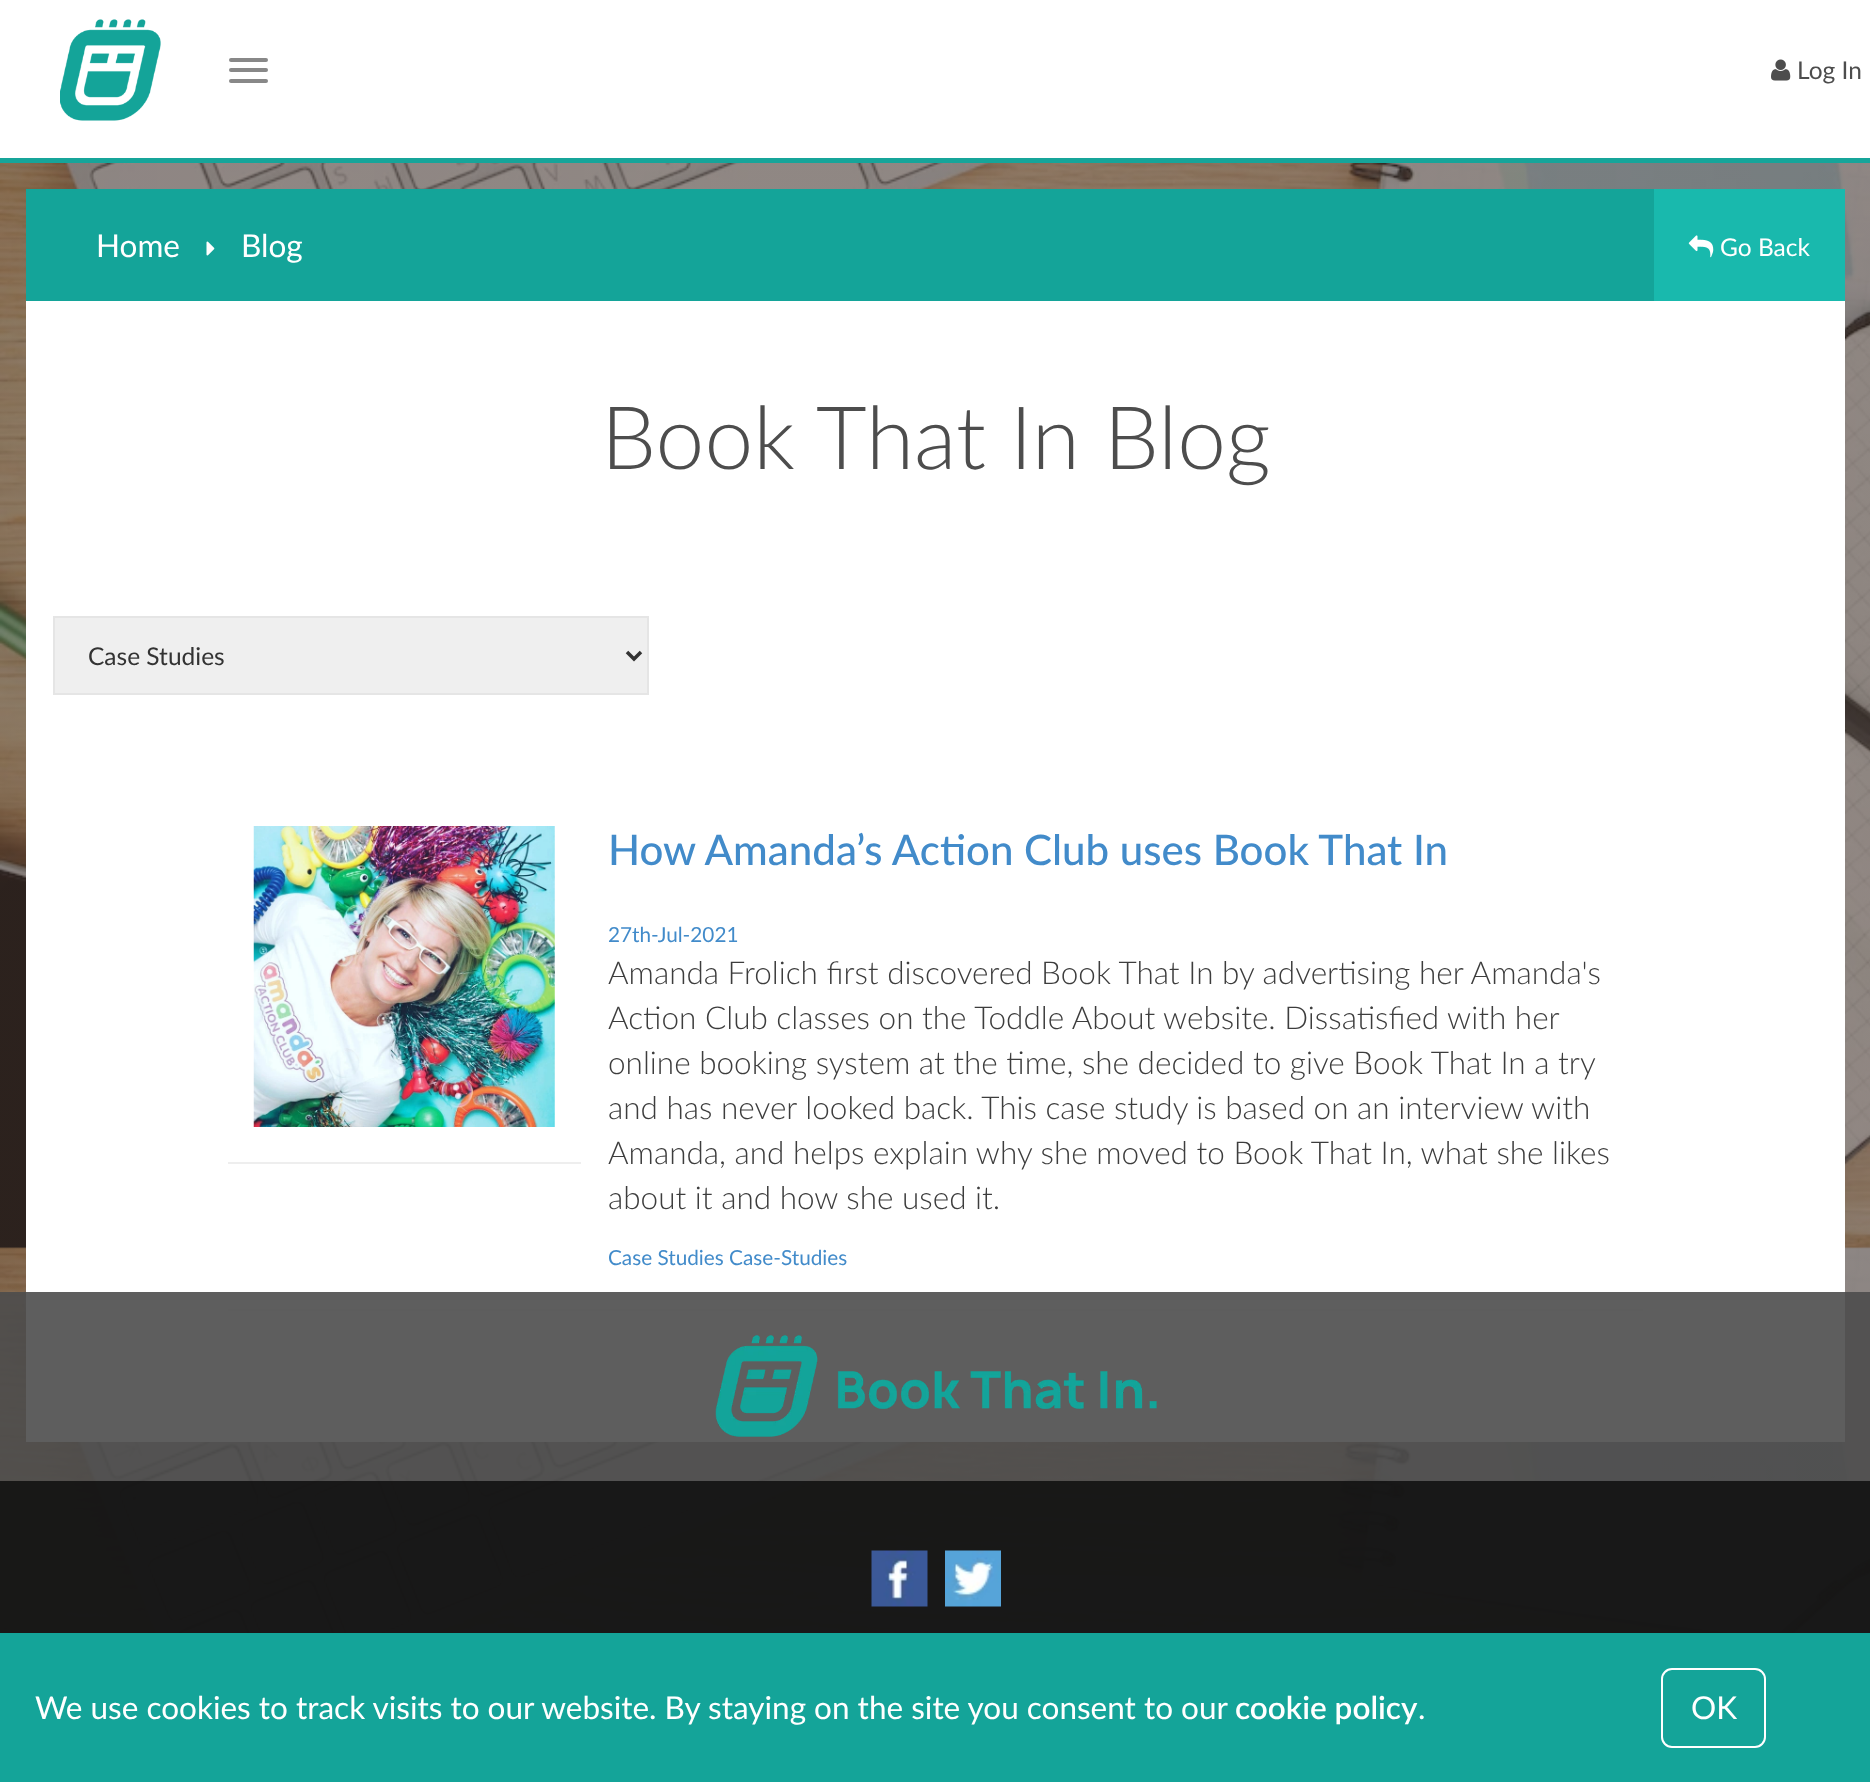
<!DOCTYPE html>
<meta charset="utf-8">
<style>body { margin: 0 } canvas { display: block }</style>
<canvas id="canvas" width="1870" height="1782"></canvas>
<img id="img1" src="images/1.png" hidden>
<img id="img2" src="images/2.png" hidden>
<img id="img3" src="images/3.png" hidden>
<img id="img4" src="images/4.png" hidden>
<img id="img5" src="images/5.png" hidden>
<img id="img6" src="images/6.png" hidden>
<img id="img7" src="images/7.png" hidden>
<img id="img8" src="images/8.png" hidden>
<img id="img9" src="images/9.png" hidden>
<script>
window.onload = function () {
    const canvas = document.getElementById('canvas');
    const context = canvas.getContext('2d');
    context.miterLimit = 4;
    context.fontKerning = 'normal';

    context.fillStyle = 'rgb(255, 255, 255)';
    context.fillRect(0, 0, 1870, 1782);
    context.drawImage(document.getElementById('img1'), 0, 163, 1870, 1470);
    context.fillStyle = 'rgb(22, 165, 154)';
    context.fillRect(0, 158, 1870, 5);
    context.drawImage(document.getElementById('img2'), 60, 19, 101, 102);
    context.fillStyle = 'rgb(136, 136, 136)';
    context.beginPath();
    context.roundRect(229, 58, 39, 4, 2);
    context.fill();
    context.beginPath();
    context.roundRect(229, 68, 39, 4, 2);
    context.fill();
    context.beginPath();
    context.roundRect(229, 79, 39, 4, 2);
    context.fill();
    context.drawImage(document.getElementById('img3'), 1771, 59, 20, 22);
    context.fillStyle = 'rgb(20, 164, 153)';
    context.fillRect(26, 189, 1628, 112);
    context.drawImage(document.getElementById('img4'), 206, 241, 9, 15);
    context.fillStyle = 'rgb(25, 185, 173)';
    context.fillRect(1654, 189, 191, 112);
    context.drawImage(document.getElementById('img5'), 1688, 235, 26, 23);
    context.fillStyle = 'rgb(255, 255, 255)';
    context.fillRect(26, 301, 1819, 1141);
    context.fillStyle = 'rgb(239, 239, 239)';
    context.beginPath();
    context.rect(54, 617, 594, 77);
    context.fill();
    context.strokeStyle = 'rgb(229, 229, 229)';
    context.lineWidth = 2;
    context.stroke();
    context.beginPath();
    context.moveTo(627, 652);
    context.lineTo(634, 659);
    context.lineTo(641, 652);
    context.strokeStyle = 'rgb(51, 51, 51)';
    context.lineWidth = 3.5;
    context.stroke();
    context.fillStyle = 'rgb(238, 238, 238)';
    context.fillRect(228, 1309, 1415, 2);
    context.fillRect(228, 1162, 353, 2);
    context.drawImage(document.getElementById('img6'), 253, 826, 302, 301);
    context.fillStyle = 'rgba(77, 77, 77, 0.9)';
    context.fillRect(0, 1292, 1870, 341);
    context.drawImage(document.getElementById('img7'), 715, 1335, 442, 102);
    context.fillStyle = 'rgba(10, 10, 10, 0.8)';
    context.fillRect(0, 1481, 1870, 152);
    context.drawImage(document.getElementById('img8'), 871, 1550, 57, 57);
    context.drawImage(document.getElementById('img9'), 945, 1550, 56, 57);
    context.fillStyle = 'rgb(20, 164, 153)';
    context.fillRect(0, 1633, 1870, 149);
    context.beginPath();
    context.roundRect(1662, 1669, 103, 78, 10);
    context.strokeStyle = 'rgb(255, 255, 255)';
    context.lineWidth = 2;
    context.stroke();
    context.font = '24.5px Lato';
    context.fillStyle = 'rgb(77, 77, 77)';
    context.fillText('Log In', 1797, 79);
    context.font = '31.5px Lato';
    context.fillStyle = 'rgb(255, 255, 255)';
    context.fillText('Home', 96, 257);
    context.fillText('Blog', 241, 257);
    context.font = '24.5px Lato';
    context.fillText('Go Back', 1720, 256);
    context.font = '300 87.5px Lato';
    context.fillStyle = 'rgb(77, 77, 77)';
    context.fillText('Book That In Blog', 601, 469);
    context.font = '24.5px Lato';
    context.fillStyle = 'rgb(51, 51, 51)';
    context.fillText('Case Studies', 88, 665);
    context.font = '500 42px Lato';
    context.fillStyle = 'rgb(66, 139, 202)';
    context.fillText('How Amanda’s Action Club uses Book That In', 608, 865);
    context.font = '20.75px Lato';
    context.fillText('27th-Jul-2021', 608, 942);
    context.font = '300 31.5px Lato';
    context.fillStyle = 'rgb(61, 61, 61)';
    context.fillText('Amanda Frolich first discovered Book That In by advertising her Amanda\'s', 608, 984);
    context.fillText('Action Club classes on the Toddle About website. Dissatisfied with her', 608, 1029);
    context.fillText('online booking system at the time, she decided to give Book That In a try', 608, 1074);
    context.fillText('and has never looked back. This case study is based on an interview with', 608, 1119);
    context.fillText('Amanda, and helps explain why she moved to Book That In, what she likes', 608, 1164);
    context.fillText('about it and how she used it.', 608, 1209);
    context.font = '20.75px Lato';
    context.fillStyle = 'rgb(66, 139, 202)';
    context.fillText('Case Studies Case-Studies', 608, 1265);
    context.font = '31.5px Lato';
    context.fillStyle = 'rgb(255, 255, 255)';
    context.fillText('We use cookies to track visits to our website. By staying on the site you consent to our', 35, 1719);
    context.font = '600 31.5px Lato';
    context.fillText('cookie policy', 1235, 1719);
    context.font = '31.5px Lato';
    context.fillText('.', 1418, 1719);
    context.fillText('OK', 1691, 1719);
};
</script>
